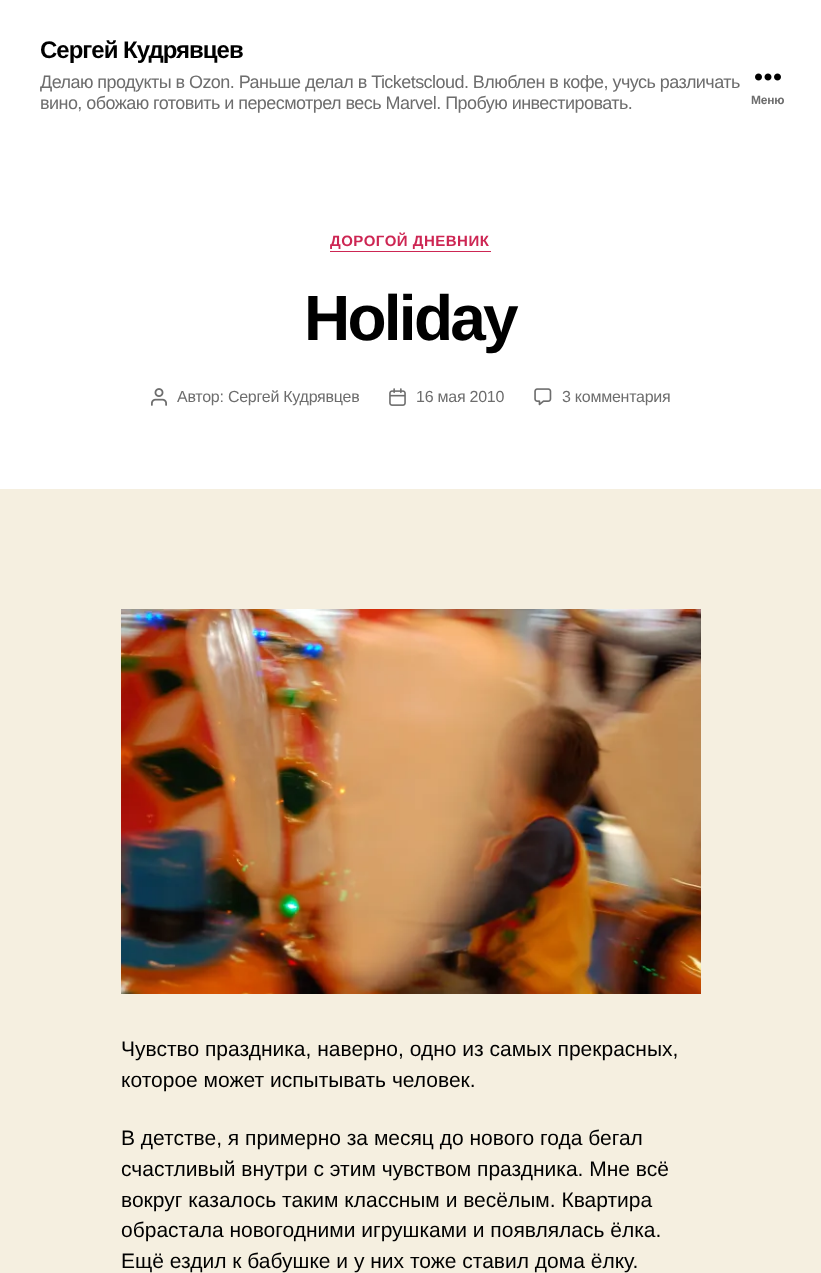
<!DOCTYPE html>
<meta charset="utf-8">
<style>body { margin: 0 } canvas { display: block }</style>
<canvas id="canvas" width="821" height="1273"></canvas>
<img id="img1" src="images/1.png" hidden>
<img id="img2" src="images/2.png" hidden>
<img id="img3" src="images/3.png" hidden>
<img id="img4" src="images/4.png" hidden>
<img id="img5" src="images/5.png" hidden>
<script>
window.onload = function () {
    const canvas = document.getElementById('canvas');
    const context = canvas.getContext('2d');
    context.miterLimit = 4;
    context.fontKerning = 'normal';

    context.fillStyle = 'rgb(245, 239, 224)';
    context.fillRect(0, 0, 821, 1273);
    context.fillStyle = 'rgb(255, 255, 255)';
    context.fillRect(0, 0, 821, 489);
    context.drawImage(document.getElementById('img1'), 755, 73, 26, 8);
    context.fillStyle = 'rgb(205, 38, 83)';
    context.fillRect(330, 251, 161, 1);
    context.drawImage(document.getElementById('img2'), 151, 388, 16, 18);
    context.drawImage(document.getElementById('img3'), 389, 388, 17, 18);
    context.drawImage(document.getElementById('img4'), 534, 388, 18, 18);
    context.drawImage(document.getElementById('img5'), 121, 609, 580, 385);
    context.letterSpacing = '-1px';
    context.font = 'bold 24px Liberation Sans';
    context.fillStyle = 'rgb(0, 0, 0)';
    context.fillText('Сергей Кудрявцев', 40, 58);
    context.letterSpacing = '-0.55px';
    context.font = '18px Liberation Sans';
    context.fillStyle = 'rgb(109, 109, 109)';
    context.fillText('Делаю продукты в Ozon. Раньше делал в Ticketscloud. Влюблен в кофе, учусь различать', 40, 88);
    context.fillText('вино, обожаю готовить и пересмотрел весь Marvel. Пробую инвестировать.', 40, 109);
    context.letterSpacing = '-0.25px';
    context.font = 'bold 12px Liberation Sans';
    context.fillText('Меню', 751, 104);
    context.letterSpacing = '0.5px';
    context.font = 'bold 15px Liberation Sans';
    context.fillStyle = 'rgb(205, 38, 83)';
    context.fillText('ДОРОГОЙ ДНЕВНИК', 330, 246);
    context.letterSpacing = '-2.75px';
    context.font = 'bold 64px Liberation Sans';
    context.fillStyle = 'rgb(0, 0, 0)';
    context.fillText('Holiday', 304, 340);
    context.letterSpacing = '-0.25px';
    context.font = '16px Liberation Sans';
    context.fillStyle = 'rgb(109, 109, 109)';
    context.fillText('Автор: Сергей Кудрявцев', 177, 402);
    context.fillText('16 мая 2010', 416, 402);
    context.fillText('3 комментария', 562, 402);
    context.letterSpacing = '0px';
    context.font = '21px Liberation Sans';
    context.fillStyle = 'rgb(0, 0, 0)';
    context.fillText('Чувство праздника, наверно, одно из самых прекрасных,', 121, 1056);
    context.fillText('которое может испытывать человек.', 121, 1087);
    context.fillText('В детстве, я примерно за месяц до нового года бегал', 121, 1145);
    context.fillText('счастливый внутри с этим чувством праздника. Мне всё', 121, 1176);
    context.fillText('вокруг казалось таким классным и весёлым. Квартира', 121, 1207);
    context.fillText('обрастала новогодними игрушками и появлялась ёлка.', 121, 1237);
    context.fillText('Ещё ездил к бабушке и у них тоже ставил дома ёлку.', 121, 1268);
};
</script>
